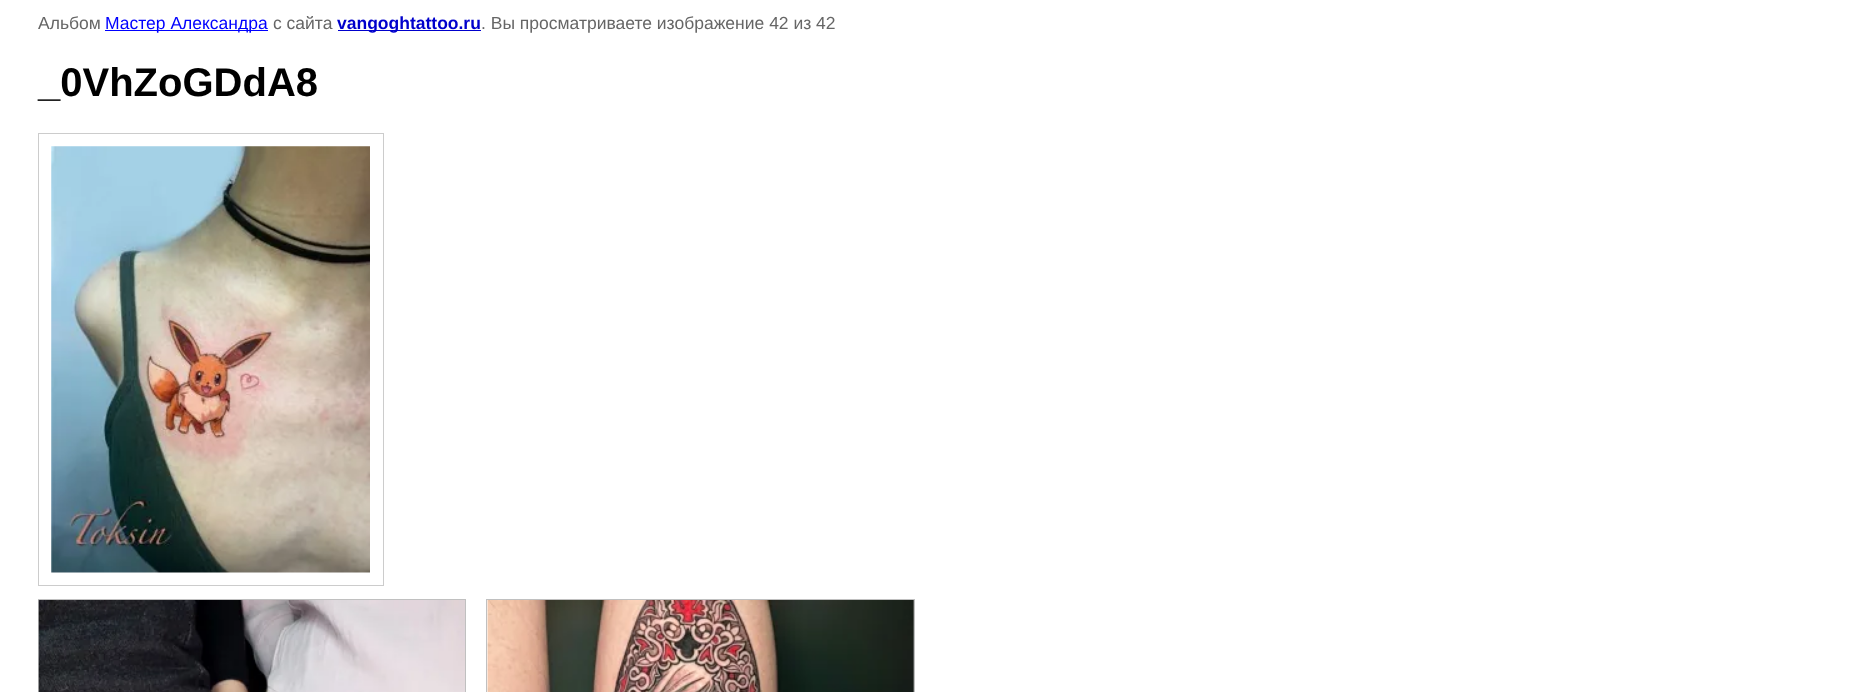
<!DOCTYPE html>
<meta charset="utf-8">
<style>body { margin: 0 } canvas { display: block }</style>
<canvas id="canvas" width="1867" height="692"></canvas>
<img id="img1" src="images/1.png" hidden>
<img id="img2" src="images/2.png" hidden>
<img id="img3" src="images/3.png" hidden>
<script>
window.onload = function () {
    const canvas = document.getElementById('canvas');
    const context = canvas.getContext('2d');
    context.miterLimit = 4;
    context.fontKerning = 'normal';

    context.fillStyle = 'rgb(255, 255, 255)';
    context.fillRect(0, 0, 1867, 692);
    context.fillStyle = 'rgb(0, 0, 255)';
    context.fillRect(105, 30, 163, 1);
    context.fillStyle = 'rgb(0, 0, 204)';
    context.fillRect(338, 30, 143, 1);
    context.strokeStyle = 'rgb(204, 204, 204)';
    context.strokeRect(38.5, 133.5, 345, 452);
    context.drawImage(document.getElementById('img1'), 51, 146, 319, 427);
    context.strokeStyle = 'rgb(192, 192, 192)';
    context.strokeRect(38.5, 599.5, 427, 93);
    context.drawImage(document.getElementById('img2'), 38, 600, 427, 92);
    context.strokeRect(486.5, 599.5, 428, 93);
    context.drawImage(document.getElementById('img3'), 487, 600, 427, 92);
    context.font = '17.5px Liberation Sans';
    context.fillStyle = 'rgb(102, 102, 102)';
    context.fillText('Альбом', 38, 29);
    context.fillStyle = 'rgb(0, 0, 255)';
    context.fillText('Мастер Александра', 105, 29);
    context.fillStyle = 'rgb(102, 102, 102)';
    context.fillText('с сайта', 273, 29);
    context.font = 'bold 17.5px Liberation Sans';
    context.fillStyle = 'rgb(0, 0, 204)';
    context.fillText('vangoghtattoo.ru', 337, 29);
    context.font = '17.5px Liberation Sans';
    context.fillStyle = 'rgb(102, 102, 102)';
    context.fillText('. Вы просматриваете изображение 42 из 42', 481, 29);
    context.font = 'bold 40px Liberation Sans';
    context.fillStyle = 'rgb(0, 0, 0)';
    context.fillText('_0VhZoGDdA8', 38, 96);
};
</script>
